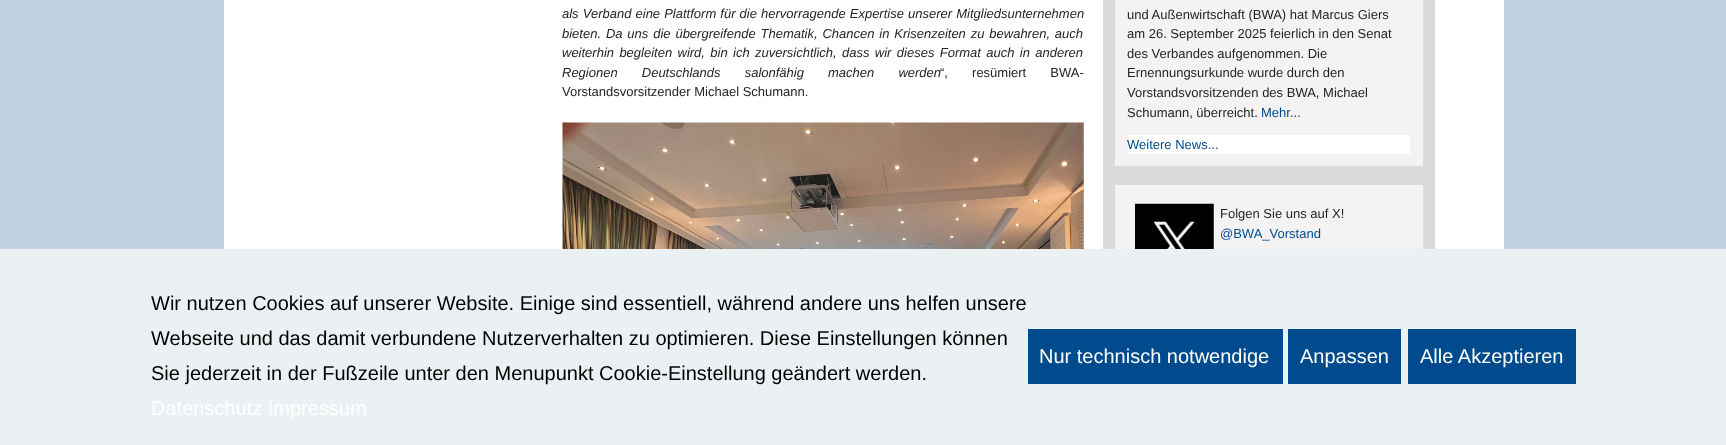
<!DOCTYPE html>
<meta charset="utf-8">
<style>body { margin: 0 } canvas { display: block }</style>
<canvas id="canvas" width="1726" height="445"></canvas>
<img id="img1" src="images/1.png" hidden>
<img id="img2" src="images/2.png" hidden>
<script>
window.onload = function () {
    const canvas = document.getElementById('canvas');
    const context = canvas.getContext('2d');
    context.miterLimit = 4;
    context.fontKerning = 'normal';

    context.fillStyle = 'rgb(192, 209, 225)';
    context.fillRect(0, 0, 1726, 445);
    context.fillStyle = 'rgb(255, 255, 255)';
    context.fillRect(224, 0, 1280, 249);
    context.drawImage(document.getElementById('img1'), 562, 122, 522, 127);
    context.fillStyle = 'rgb(219, 219, 219)';
    context.fillRect(1103, 0, 332, 249);
    context.fillStyle = 'rgb(244, 242, 242)';
    context.fillRect(1115, 0, 308, 166);
    context.fillStyle = 'rgb(255, 255, 255)';
    context.fillRect(1128, 135, 282, 19);
    context.fillStyle = 'rgb(244, 242, 242)';
    context.fillRect(1115, 185, 308, 64);
    context.drawImage(document.getElementById('img2'), 1135, 203, 79, 46);
    context.fillStyle = 'rgb(235, 240, 242)';
    context.fillRect(0, 249, 1726, 196);
    context.fillStyle = 'rgb(0, 75, 141)';
    context.fillRect(1028, 329, 255, 55);
    context.fillRect(1288, 329, 113, 55);
    context.fillRect(1408, 329, 168, 55);
    context.wordSpacing = '0.5px';
    context.font = 'italic 13px Liberation Sans';
    context.fillStyle = 'rgb(33, 37, 41)';
    context.fillText('als Verband eine Plattform für die hervorragende Expertise unserer Mitgliedsunternehmen', 562, 18);
    context.wordSpacing = '1.25px';
    context.fillText('bieten. Da uns die übergreifende Thematik, Chancen in Krisenzeiten zu bewahren, auch', 562, 38);
    context.wordSpacing = '1.75px';
    context.fillText('weiterhin begleiten wird, bin ich zuversichtlich, dass wir dieses Format auch in anderen', 562, 57);
    context.wordSpacing = '20.5px';
    context.fillText('Regionen Deutschlands salonfähig machen werden', 562, 77);
    context.font = '13px Liberation Sans';
    context.fillText('“, resümiert BWA-', 940, 77);
    context.wordSpacing = '0px';
    context.fillText('Vorstandsvorsitzender Michael Schumann.', 562, 96);
    context.fillText('und Außenwirtschaft (BWA) hat Marcus Giers', 1127, 19);
    context.fillText('am 26. September 2025 feierlich in den Senat', 1127, 38);
    context.fillText('des Verbandes aufgenommen. Die', 1127, 58);
    context.fillText('Ernennungsurkunde wurde durch den', 1127, 77);
    context.fillText('Vorstandsvorsitzenden des BWA, Michael', 1127, 97);
    context.fillText('Schumann, überreicht.', 1127, 117);
    context.fillStyle = 'rgb(0, 75, 141)';
    context.fillText('Mehr...', 1261, 117);
    context.fillText('Weitere News...', 1127, 149);
    context.fillStyle = 'rgb(33, 37, 41)';
    context.fillText('Folgen Sie uns auf X!', 1220, 218);
    context.fillStyle = 'rgb(0, 75, 141)';
    context.fillText('@BWA_Vorstand', 1220, 238);
    context.font = '20px Liberation Sans';
    context.fillStyle = 'rgb(0, 0, 0)';
    context.fillText('Wir nutzen Cookies auf unserer Website. Einige sind essentiell, während andere uns helfen unsere', 151, 310);
    context.fillText('Webseite und das damit verbundene Nutzerverhalten zu optimieren. Diese Einstellungen können', 151, 345);
    context.fillText('Sie jederzeit in der Fußzeile unter den Menupunkt Cookie-Einstellung geändert werden.', 151, 380);
    context.fillStyle = 'rgb(255, 255, 255)';
    context.fillText('Datenschutz Impressum', 151, 415);
    context.fillText('Nur technisch notwendige', 1039, 363);
    context.fillText('Anpassen', 1300, 363);
    context.fillText('Alle Akzeptieren', 1420, 363);
};
</script>
